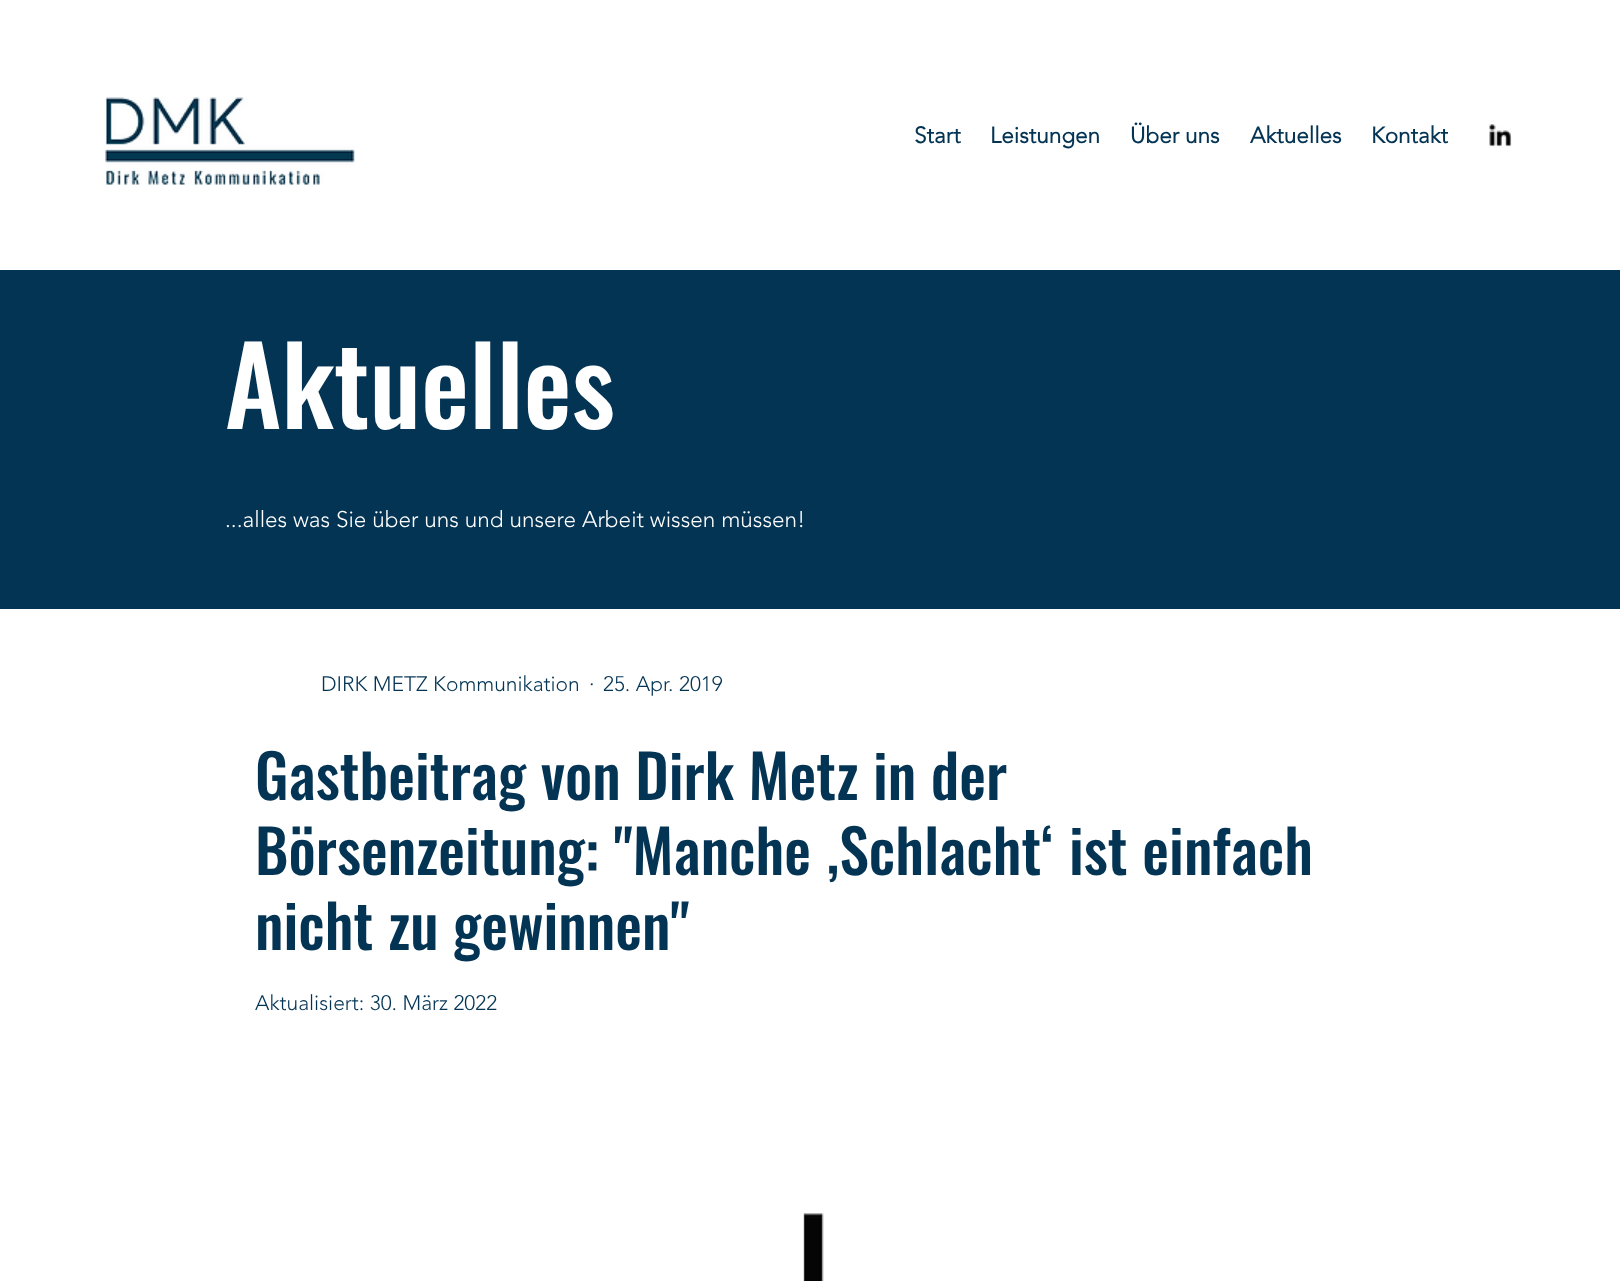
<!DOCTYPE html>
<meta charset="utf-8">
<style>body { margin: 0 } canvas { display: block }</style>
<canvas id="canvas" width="1620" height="1281"></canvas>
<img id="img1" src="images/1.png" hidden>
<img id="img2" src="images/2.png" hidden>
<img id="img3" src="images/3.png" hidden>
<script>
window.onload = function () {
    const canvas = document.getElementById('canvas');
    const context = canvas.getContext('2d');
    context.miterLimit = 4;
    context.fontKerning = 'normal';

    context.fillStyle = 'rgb(255, 255, 255)';
    context.fillRect(0, 0, 1620, 1281);
    context.drawImage(document.getElementById('img1'), 105, 97, 250, 88);
    context.drawImage(document.getElementById('img2'), 1489, 124, 23, 23);
    context.fillStyle = 'rgb(4, 52, 84)';
    context.fillRect(0, 270, 1620, 339);
    context.drawImage(document.getElementById('img3'), 803, 1213, 21, 68);
    context.font = 'bold 22.5px "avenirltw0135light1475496"';
    context.fillText('Start', 914, 143);
    context.fillText('Leistungen', 990, 143);
    context.fillText('Über uns', 1130, 143);
    context.fillText('Aktuelles', 1250, 143);
    context.fillText('Kontakt', 1371, 143);
    context.font = '500 108px Oswald';
    context.fillStyle = 'rgb(255, 255, 255)';
    context.fillText('Aktuelles', 225, 429);
    context.font = '300 22.5px "avenirltw0135light1475496"';
    context.fillText('...alles was Sie über uns und unsere Arbeit wissen müssen!', 225, 527);
    context.font = '300 21px "avenirltw0135light1475496"';
    context.fillStyle = 'rgb(4, 52, 84)';
    context.fillText('DIRK METZ Kommunikation', 321, 691);
    context.fillText('·', 589, 691);
    context.fillText('25. Apr. 2019', 603, 691);
    context.font = '500 60px Oswald';
    context.fillText('Gastbeitrag von Dirk Metz in der', 255, 800);
    context.fillText('Börsenzeitung: "Manche ‚Schlacht‘ ist einfach', 255, 875);
    context.fillText('nicht zu gewinnen"', 255, 950);
    context.font = '300 21px "avenirltw0135light1475496"';
    context.fillText('Aktualisiert: 30. März 2022', 255, 1010);
};
</script>
